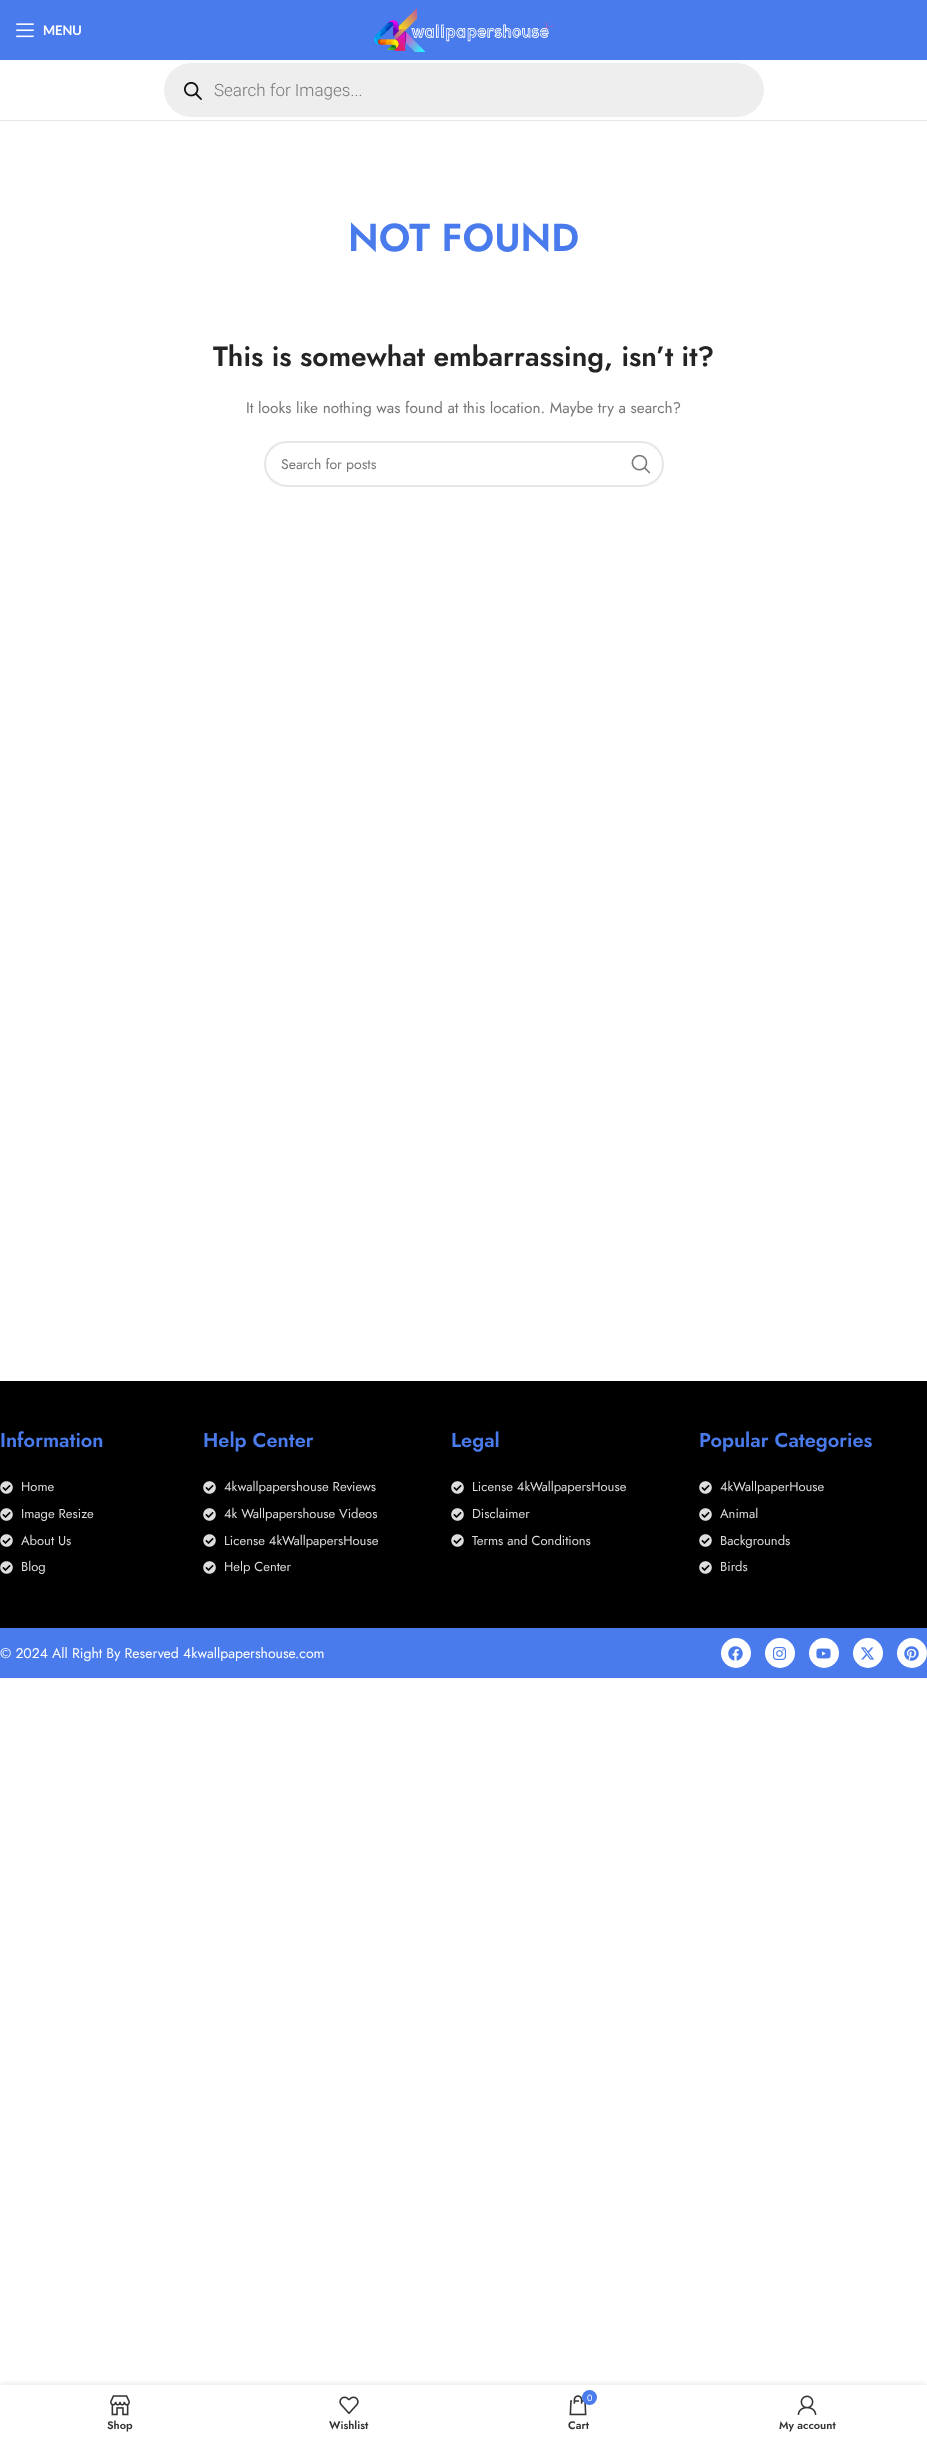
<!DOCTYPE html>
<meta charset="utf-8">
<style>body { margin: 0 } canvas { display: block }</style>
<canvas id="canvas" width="927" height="2440"></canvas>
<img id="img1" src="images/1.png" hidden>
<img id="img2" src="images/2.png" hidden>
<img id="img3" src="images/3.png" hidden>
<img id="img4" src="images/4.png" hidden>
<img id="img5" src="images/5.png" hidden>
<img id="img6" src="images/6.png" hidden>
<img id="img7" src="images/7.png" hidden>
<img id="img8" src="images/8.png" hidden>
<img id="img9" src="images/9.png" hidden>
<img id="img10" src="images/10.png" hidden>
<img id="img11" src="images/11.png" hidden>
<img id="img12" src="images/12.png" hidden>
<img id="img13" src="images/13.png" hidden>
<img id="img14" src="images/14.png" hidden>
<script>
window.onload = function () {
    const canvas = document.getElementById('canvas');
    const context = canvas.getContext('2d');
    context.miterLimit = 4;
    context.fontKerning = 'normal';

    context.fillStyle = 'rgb(255, 255, 255)';
    context.fillRect(0, 0, 927, 2440);
    context.fillStyle = 'rgb(74, 123, 236)';
    context.fillRect(0, 0, 927, 60);
    context.drawImage(document.getElementById('img1'), 16, 23, 18, 15);
    context.drawImage(document.getElementById('img2'), 374, 8, 179, 44);
    context.fillStyle = 'rgb(230, 230, 230)';
    context.fillRect(0, 120, 927, 1);
    context.fillStyle = 'rgb(238, 238, 238)';
    context.beginPath();
    context.roundRect(164, 63, 600, 54, 27);
    context.fill();
    context.drawImage(document.getElementById('img3'), 184, 82, 18, 18);
    context.beginPath();
    context.roundRect(265, 442, 398, 44, 22);
    context.strokeStyle = 'rgb(230, 230, 230)';
    context.lineWidth = 2;
    context.stroke();
    context.drawImage(document.getElementById('img4'), 631, 454, 20, 20);
    context.fillStyle = 'rgb(0, 0, 0)';
    context.fillRect(0, 1381, 927, 247);
    context.drawImage(document.getElementById('img5'), 0, 1481, 13, 13);
    context.drawImage(document.getElementById('img5'), 0, 1508, 13, 13);
    context.drawImage(document.getElementById('img5'), 0, 1534, 13, 13);
    context.drawImage(document.getElementById('img5'), 0, 1561, 13, 13);
    context.drawImage(document.getElementById('img5'), 203, 1481, 13, 13);
    context.drawImage(document.getElementById('img5'), 203, 1508, 13, 13);
    context.drawImage(document.getElementById('img5'), 203, 1534, 13, 13);
    context.drawImage(document.getElementById('img5'), 203, 1561, 13, 13);
    context.drawImage(document.getElementById('img5'), 451, 1481, 13, 13);
    context.drawImage(document.getElementById('img5'), 451, 1508, 13, 13);
    context.drawImage(document.getElementById('img5'), 451, 1534, 13, 13);
    context.drawImage(document.getElementById('img5'), 699, 1481, 13, 13);
    context.drawImage(document.getElementById('img5'), 699, 1508, 13, 13);
    context.drawImage(document.getElementById('img5'), 699, 1534, 13, 13);
    context.drawImage(document.getElementById('img5'), 699, 1561, 13, 13);
    context.fillStyle = 'rgb(74, 123, 236)';
    context.fillRect(0, 1628, 927, 50);
    context.fillStyle = 'rgb(255, 255, 255)';
    context.beginPath();
    context.arc(736, 1653, 15, 0, 2 * Math.PI);
    context.fill();
    context.drawImage(document.getElementById('img6'), 728, 1646, 15, 15);
    context.beginPath();
    context.arc(780, 1653, 15, 0, 2 * Math.PI);
    context.fill();
    context.drawImage(document.getElementById('img7'), 773, 1647, 14, 13);
    context.beginPath();
    context.arc(824, 1653, 15, 0, 2 * Math.PI);
    context.fill();
    context.drawImage(document.getElementById('img8'), 816, 1648, 15, 11);
    context.beginPath();
    context.arc(868, 1653, 15, 0, 2 * Math.PI);
    context.fill();
    context.drawImage(document.getElementById('img9'), 860, 1647, 15, 13);
    context.beginPath();
    context.arc(912, 1653, 15, 0, 2 * Math.PI);
    context.fill();
    context.drawImage(document.getElementById('img10'), 904, 1646, 15, 15);
    context.save();
    context.beginPath();
    context.rect(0, 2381, 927, 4);
    context.clip();
    context.fillStyle = 'rgba(0, 0, 0, 0.12)';
    context.filter = 'blur(4.5px)';
    context.beginPath();
    context.rect(0, 2385, 927, 55);
    context.fill();
    context.filter = 'none';
    context.restore();
    context.drawImage(document.getElementById('img11'), 110, 2395, 20, 21);
    context.drawImage(document.getElementById('img12'), 339, 2396, 20, 18);
    context.drawImage(document.getElementById('img13'), 569, 2395, 18, 21);
    context.fillStyle = 'rgb(74, 123, 236)';
    context.beginPath();
    context.arc(589.5, 2397.5, 7.5, 0, 2 * Math.PI);
    context.fill();
    context.drawImage(document.getElementById('img14'), 797, 2395, 20, 20);
    context.font = 'bold 13px Lato';
    context.fillStyle = 'rgb(255, 255, 255)';
    context.fillText('MENU', 43, 35);
    context.font = '300 17px Roboto';
    context.fillStyle = 'rgb(119, 119, 119)';
    context.fillText('Search for Images...', 214, 96);
    context.font = '600 39px Jost';
    context.fillStyle = 'rgb(74, 123, 236)';
    context.fillText('NOT FOUND', 348, 251);
    context.font = '600 28px Jost';
    context.fillStyle = 'rgb(36, 36, 36)';
    context.fillText('This is somewhat embarrassing, isn’t it?', 213, 366);
    context.font = '15.4px Jost';
    context.fillStyle = 'rgb(119, 119, 119)';
    context.fillText('It looks like nothing was found at this location. Maybe try a search?', 246, 413);
    context.font = '14px Jost';
    context.fillText('Search for posts', 281, 469);
    context.font = '600 20px Jost';
    context.fillStyle = 'rgb(74, 123, 236)';
    context.fillText('Information', 0, 1447);
    context.font = '13px Jost';
    context.fillStyle = 'rgb(221, 221, 221)';
    context.fillText('Home', 21, 1491);
    context.fillText('Image Resize', 21, 1518);
    context.fillText('About Us', 21, 1545);
    context.fillText('Blog', 21, 1571);
    context.font = '600 20px Jost';
    context.fillStyle = 'rgb(74, 123, 236)';
    context.fillText('Help Center', 203, 1447);
    context.font = '13px Jost';
    context.fillStyle = 'rgb(221, 221, 221)';
    context.fillText('4kwallpapershouse Reviews', 224, 1491);
    context.fillText('4k Wallpapershouse Videos', 224, 1518);
    context.fillText('License 4kWallpapersHouse', 224, 1545);
    context.fillText('Help Center', 224, 1571);
    context.font = '600 20px Jost';
    context.fillStyle = 'rgb(74, 123, 236)';
    context.fillText('Legal', 451, 1447);
    context.font = '13px Jost';
    context.fillStyle = 'rgb(221, 221, 221)';
    context.fillText('License 4kWallpapersHouse', 472, 1491);
    context.fillText('Disclaimer', 472, 1518);
    context.fillText('Terms and Conditions', 472, 1545);
    context.font = '600 20px Jost';
    context.fillStyle = 'rgb(74, 123, 236)';
    context.fillText('Popular Categories', 699, 1447);
    context.font = '13px Jost';
    context.fillStyle = 'rgb(221, 221, 221)';
    context.fillText('4kWallpaperHouse', 720, 1491);
    context.fillText('Animal', 720, 1518);
    context.fillText('Backgrounds', 720, 1545);
    context.fillText('Birds', 720, 1571);
    context.font = '14px Jost';
    context.fillStyle = 'rgb(255, 255, 255)';
    context.fillText('© 2024 All Right By Reserved 4kwallpapershouse.com', 0, 1658);
    context.font = '600 11px Jost';
    context.fillStyle = 'rgb(51, 51, 51)';
    context.fillText('Shop', 107, 2429);
    context.fillText('Wishlist', 329, 2429);
    context.font = '9px Jost';
    context.fillStyle = 'rgb(255, 255, 255)';
    context.fillText('0', 587, 2401);
    context.font = '600 11px Jost';
    context.fillStyle = 'rgb(51, 51, 51)';
    context.fillText('Cart', 568, 2429);
    context.fillText('My account', 779, 2429);
};
</script>
